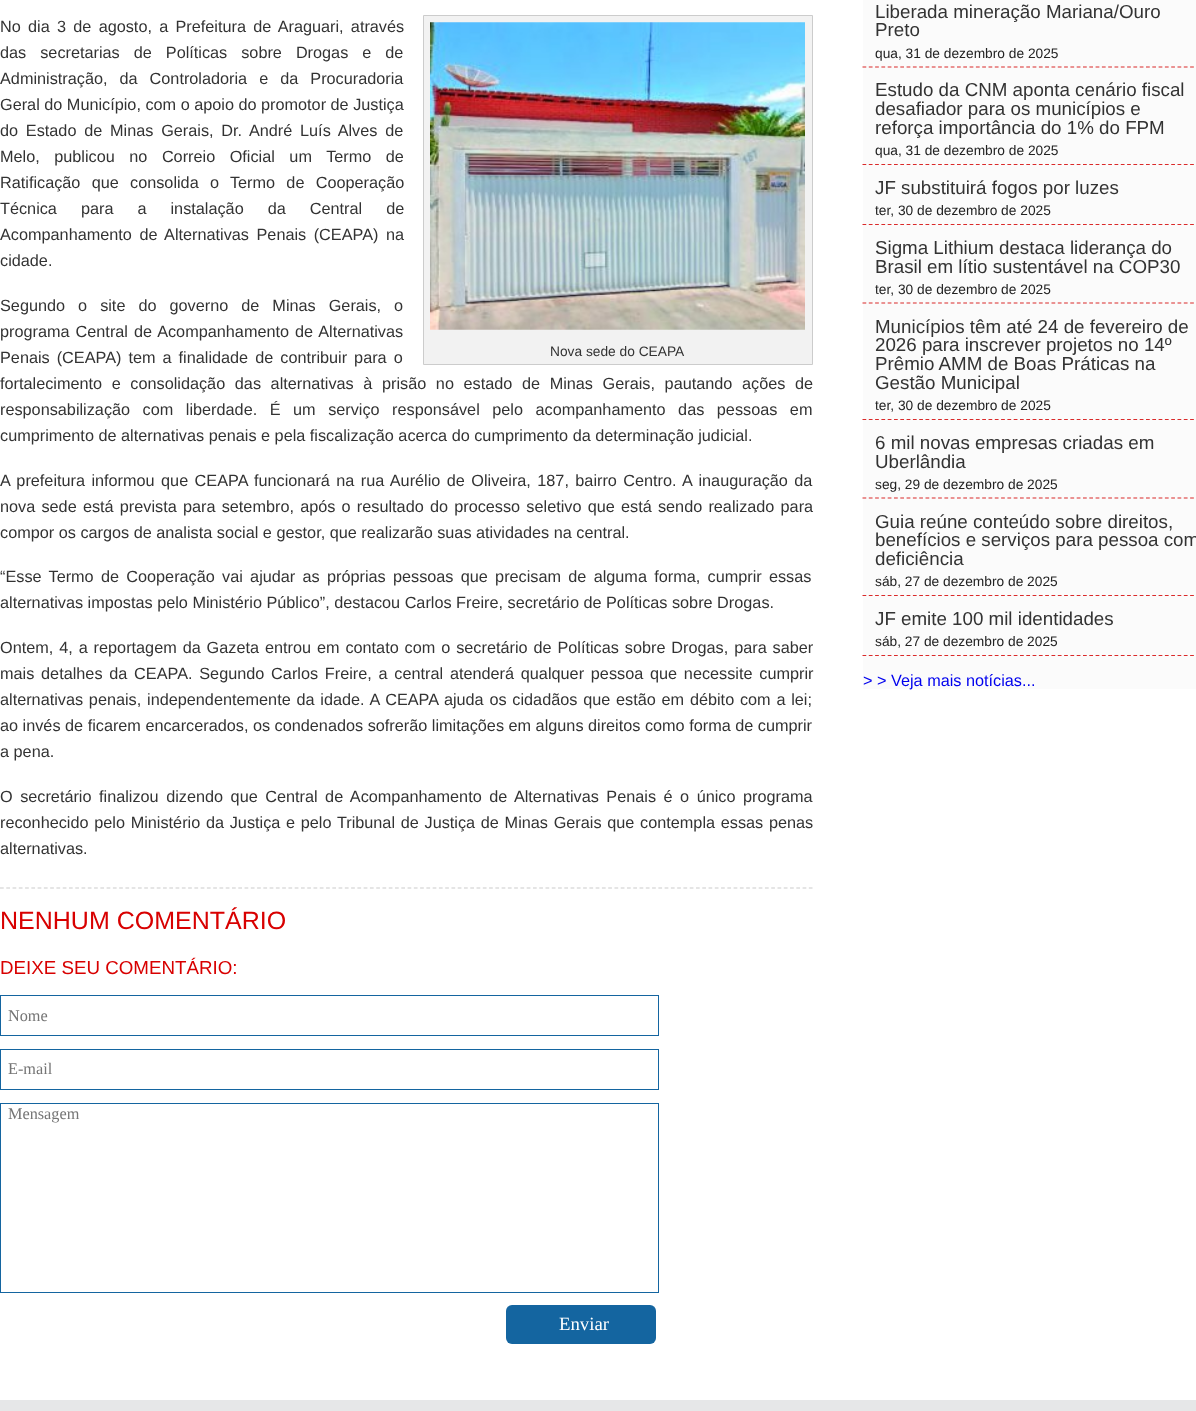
<!DOCTYPE html>
<meta charset="utf-8">
<style>body { margin: 0 } canvas { display: block }</style>
<canvas id="canvas" width="1196" height="1411"></canvas>
<img id="img1" src="images/1.png" hidden>
<script>
window.onload = function () {
    const canvas = document.getElementById('canvas');
    const context = canvas.getContext('2d');
    context.miterLimit = 4;
    context.fontKerning = 'normal';

    context.fillStyle = 'rgb(255, 255, 255)';
    context.fillRect(0, 0, 1196, 1411);
    context.fillStyle = 'rgb(242, 242, 242)';
    context.beginPath();
    context.rect(423.5, 15.5, 389, 349);
    context.fill();
    context.strokeStyle = 'rgb(204, 204, 204)';
    context.stroke();
    context.drawImage(document.getElementById('img1'), 430, 22, 375, 308);
    context.beginPath();
    context.moveTo(0, 888);
    context.lineTo(812.5, 888);
    context.lineWidth = 1.2;
    context.setLineDash([3.75, 2.52]);
    context.stroke();
    context.strokeStyle = 'rgb(20, 101, 160)';
    context.lineWidth = 1;
    context.setLineDash([]);
    context.strokeRect(0.5, 995.5, 658, 40);
    context.strokeRect(0.5, 1049.5, 658, 40);
    context.strokeRect(0.5, 1103.5, 658, 189);
    context.fillStyle = 'rgb(20, 101, 160)';
    context.beginPath();
    context.roundRect(506, 1305, 150, 39, 6);
    context.fill();
    context.fillStyle = 'rgb(251, 251, 251)';
    context.fillRect(863, 0, 333, 689);
    context.beginPath();
    context.moveTo(862.5, 67);
    context.lineTo(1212.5, 67);
    context.strokeStyle = 'rgb(218, 42, 42)';
    context.lineWidth = 1.2;
    context.setLineDash([3.75, 2.55]);
    context.stroke();
    context.beginPath();
    context.moveTo(862.5, 164.5);
    context.lineTo(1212.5, 164.5);
    context.stroke();
    context.beginPath();
    context.moveTo(862.5, 224.5);
    context.lineTo(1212.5, 224.5);
    context.stroke();
    context.beginPath();
    context.moveTo(862.5, 303);
    context.lineTo(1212.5, 303);
    context.stroke();
    context.beginPath();
    context.moveTo(862.5, 419.5);
    context.lineTo(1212.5, 419.5);
    context.stroke();
    context.beginPath();
    context.moveTo(862.5, 498);
    context.lineTo(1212.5, 498);
    context.stroke();
    context.beginPath();
    context.moveTo(862.5, 595.5);
    context.lineTo(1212.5, 595.5);
    context.stroke();
    context.beginPath();
    context.moveTo(862.5, 655.5);
    context.lineTo(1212.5, 655.5);
    context.stroke();
    context.fillStyle = 'rgb(230, 231, 232)';
    context.fillRect(0, 1400, 1196, 11);
    context.wordSpacing = '2.75px';
    context.font = '16.25px Liberation Sans';
    context.fillStyle = 'rgb(51, 51, 51)';
    context.fillText('No dia 3 de agosto, a Prefeitura de Araguari, através', 0, 32);
    context.wordSpacing = '9.5px';
    context.fillText('das secretarias de Políticas sobre Drogas e de', 0, 58);
    context.wordSpacing = '7.5px';
    context.fillText('Administração, da Controladoria e da Procuradoria', 0, 84);
    context.wordSpacing = '0px';
    context.fillText('Geral do Município, com o apoio do promotor de Justiça', 0, 110);
    context.wordSpacing = '3.25px';
    context.fillText('do Estado de Minas Gerais, Dr. André Luís Alves de', 0, 136);
    context.wordSpacing = '10px';
    context.fillText('Melo, publicou no Correio Oficial um Termo de', 0, 162);
    context.wordSpacing = '6.75px';
    context.fillText('Ratificação que consolida o Termo de Cooperação', 0, 188);
    context.wordSpacing = '19.5px';
    context.fillText('Técnica para a instalação da Central de', 0, 214);
    context.wordSpacing = '3px';
    context.fillText('Acompanhamento de Alternativas Penais (CEAPA) na', 0, 240);
    context.wordSpacing = '0px';
    context.fillText('cidade.', 0, 266);
    context.wordSpacing = '8.5px';
    context.fillText('Segundo o site do governo de Minas Gerais, o', 0, 311);
    context.wordSpacing = '1.5px';
    context.fillText('programa Central de Acompanhamento de Alternativas', 0, 337);
    context.wordSpacing = '2.5px';
    context.fillText('Penais (CEAPA) tem a finalidade de contribuir para o', 0, 363);
    context.wordSpacing = '5.1px';
    context.fillText('fortalecimento e consolidação das alternativas à prisão no estado de Minas Gerais, pautando ações de', 0, 389);
    context.wordSpacing = '8px';
    context.fillText('responsabilização com liberdade. É um serviço responsável pelo acompanhamento das pessoas em', 0, 415);
    context.wordSpacing = '0px';
    context.fillText('cumprimento de alternativas penais e pela fiscalização acerca do cumprimento da determinação judicial.', 0, 441);
    context.wordSpacing = '1.9px';
    context.fillText('A prefeitura informou que CEAPA funcionará na rua Aurélio de Oliveira, 187, bairro Centro. A inauguração da', 0, 486);
    context.wordSpacing = '1.7px';
    context.fillText('nova sede está prevista para setembro, após o resultado do processo seletivo que está sendo realizado para', 0, 512);
    context.wordSpacing = '0px';
    context.fillText('compor os cargos de analista social e gestor, que realizarão suas atividades na central.', 0, 538);
    context.wordSpacing = '2.75px';
    context.fillText('“Esse Termo de Cooperação vai ajudar as próprias pessoas que precisam de alguma forma, cumprir essas', 0, 582);
    context.wordSpacing = '0px';
    context.fillText('alternativas impostas pelo Ministério Público”, destacou Carlos Freire, secretário de Políticas sobre Drogas.', 0, 608);
    context.wordSpacing = '1.4px';
    context.fillText('Ontem, 4, a reportagem da Gazeta entrou em contato com o secretário de Políticas sobre Drogas, para saber', 0, 653);
    context.wordSpacing = '2.25px';
    context.fillText('mais detalhes da CEAPA. Segundo Carlos Freire, a central atenderá qualquer pessoa que necessite cumprir', 0, 679);
    context.wordSpacing = '1.25px';
    context.fillText('alternativas penais, independentemente da idade. A CEAPA ajuda os cidadãos que estão em débito com a lei;', 0, 705);
    context.wordSpacing = '0px';
    context.fillText('ao invés de ficarem encarcerados, os condenados sofrerão limitações em alguns direitos como forma de cumprir', 0, 731);
    context.fillText('a pena.', 0, 757);
    context.wordSpacing = '3px';
    context.fillText('O secretário finalizou dizendo que Central de Acompanhamento de Alternativas Penais é o único programa', 0, 802);
    context.wordSpacing = '1.2px';
    context.fillText('reconhecido pelo Ministério da Justiça e pelo Tribunal de Justiça de Minas Gerais que contempla essas penas', 0, 828);
    context.wordSpacing = '0px';
    context.fillText('alternativas.', 0, 854);
    context.font = '13.75px Liberation Sans';
    context.fillText('Nova sede do CEAPA', 550, 356);
    context.font = '25px Liberation Sans';
    context.fillStyle = 'rgb(216, 0, 0)';
    context.fillText('NENHUM COMENTÁRIO', 0, 929);
    context.font = '18.75px Liberation Sans';
    context.fillText('DEIXE SEU COMENTÁRIO:', 0, 974);
    context.font = '16.25px Liberation Serif';
    context.fillStyle = 'rgb(117, 117, 117)';
    context.fillText('Nome', 8, 1021);
    context.fillText('E-mail', 8, 1074);
    context.fillText('Mensagem', 8, 1119);
    context.font = '18.75px Liberation Serif';
    context.fillStyle = 'rgb(255, 255, 255)';
    context.fillText('Enviar', 559, 1330);
    context.font = '18.75px Liberation Sans';
    context.fillStyle = 'rgb(51, 51, 51)';
    context.fillText('Liberada mineração Mariana/Ouro', 875, 18);
    context.fillText('Preto', 875, 36);
    context.font = '13.75px Liberation Sans';
    context.fillStyle = 'rgb(34, 34, 34)';
    context.fillText('qua, 31 de dezembro de 2025', 875, 58);
    context.font = '18.75px Liberation Sans';
    context.fillStyle = 'rgb(51, 51, 51)';
    context.fillText('Estudo da CNM aponta cenário fiscal', 875, 96);
    context.fillText('desafiador para os municípios e', 875, 115);
    context.fillText('reforça importância do 1% do FPM', 875, 134);
    context.font = '13.75px Liberation Sans';
    context.fillStyle = 'rgb(34, 34, 34)';
    context.fillText('qua, 31 de dezembro de 2025', 875, 155);
    context.font = '18.75px Liberation Sans';
    context.fillStyle = 'rgb(51, 51, 51)';
    context.fillText('JF substituirá fogos por luzes', 875, 194);
    context.font = '13.75px Liberation Sans';
    context.fillStyle = 'rgb(34, 34, 34)';
    context.fillText('ter, 30 de dezembro de 2025', 875, 215);
    context.font = '18.75px Liberation Sans';
    context.fillStyle = 'rgb(51, 51, 51)';
    context.fillText('Sigma Lithium destaca liderança do', 875, 254);
    context.fillText('Brasil em lítio sustentável na COP30', 875, 273);
    context.font = '13.75px Liberation Sans';
    context.fillStyle = 'rgb(34, 34, 34)';
    context.fillText('ter, 30 de dezembro de 2025', 875, 294);
    context.font = '18.75px Liberation Sans';
    context.fillStyle = 'rgb(51, 51, 51)';
    context.fillText('Municípios têm até 24 de fevereiro de', 875, 333);
    context.fillText('2026 para inscrever projetos no 14º', 875, 351);
    context.fillText('Prêmio AMM de Boas Práticas na', 875, 370);
    context.fillText('Gestão Municipal', 875, 389);
    context.font = '13.75px Liberation Sans';
    context.fillStyle = 'rgb(34, 34, 34)';
    context.fillText('ter, 30 de dezembro de 2025', 875, 410);
    context.font = '18.75px Liberation Sans';
    context.fillStyle = 'rgb(51, 51, 51)';
    context.fillText('6 mil novas empresas criadas em', 875, 449);
    context.fillText('Uberlândia', 875, 468);
    context.font = '13.75px Liberation Sans';
    context.fillStyle = 'rgb(34, 34, 34)';
    context.fillText('seg, 29 de dezembro de 2025', 875, 489);
    context.font = '18.75px Liberation Sans';
    context.fillStyle = 'rgb(51, 51, 51)';
    context.fillText('Guia reúne conteúdo sobre direitos,', 875, 528);
    context.fillText('benefícios e serviços para pessoa com', 875, 546);
    context.fillText('deficiência', 875, 565);
    context.font = '13.75px Liberation Sans';
    context.fillStyle = 'rgb(34, 34, 34)';
    context.fillText('sáb, 27 de dezembro de 2025', 875, 586);
    context.font = '18.75px Liberation Sans';
    context.fillStyle = 'rgb(51, 51, 51)';
    context.fillText('JF emite 100 mil identidades', 875, 625);
    context.font = '13.75px Liberation Sans';
    context.fillStyle = 'rgb(34, 34, 34)';
    context.fillText('sáb, 27 de dezembro de 2025', 875, 646);
    context.font = '16.25px Liberation Sans';
    context.fillStyle = 'rgb(0, 0, 238)';
    context.fillText('> > Veja mais notícias...', 863, 686);
};
</script>
